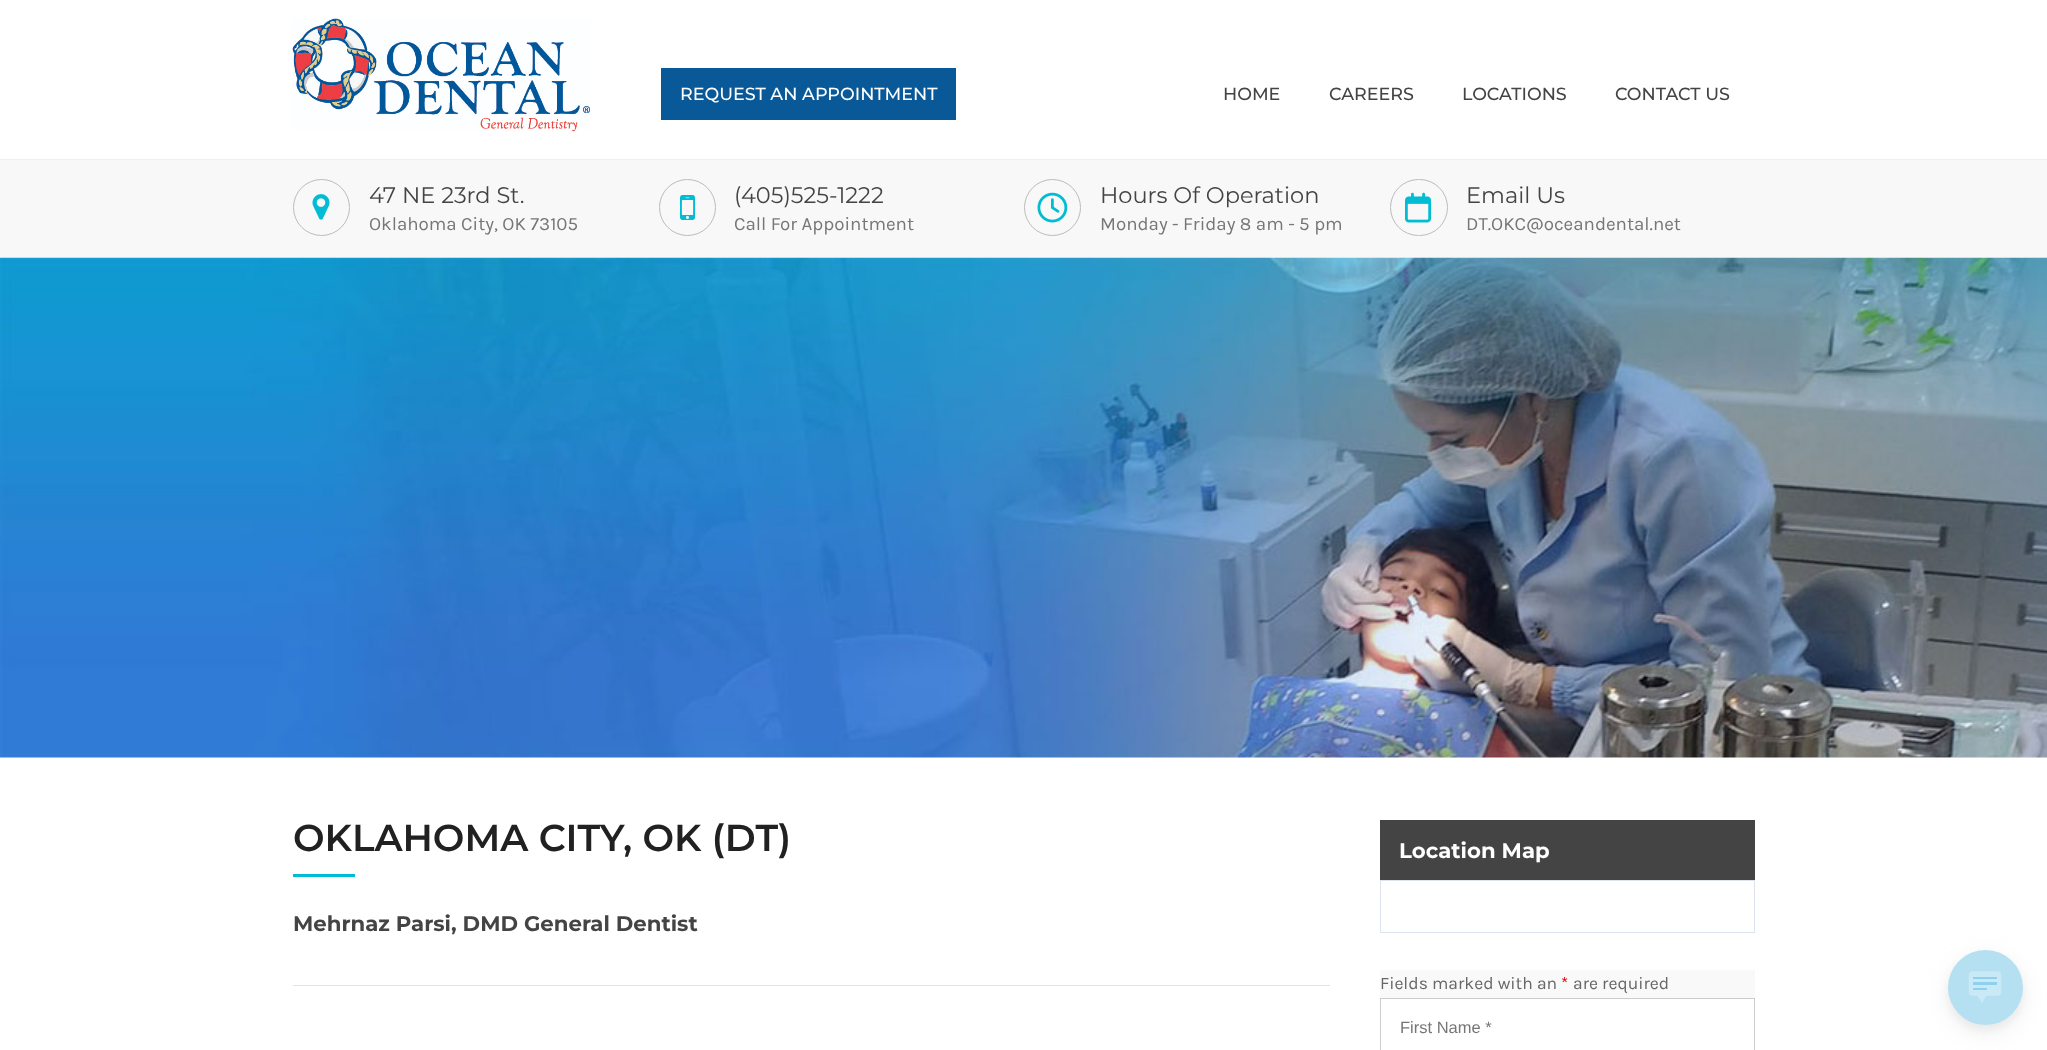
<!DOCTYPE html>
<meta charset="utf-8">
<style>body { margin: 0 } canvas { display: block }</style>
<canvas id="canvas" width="2047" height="1050"></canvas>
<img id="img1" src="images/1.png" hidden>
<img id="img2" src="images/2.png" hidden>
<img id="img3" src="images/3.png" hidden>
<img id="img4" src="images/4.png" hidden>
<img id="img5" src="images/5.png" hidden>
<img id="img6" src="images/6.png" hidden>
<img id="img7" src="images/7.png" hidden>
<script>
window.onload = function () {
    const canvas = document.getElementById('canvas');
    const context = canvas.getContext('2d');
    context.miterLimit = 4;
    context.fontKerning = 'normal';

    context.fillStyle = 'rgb(255, 255, 255)';
    context.fillRect(0, 0, 2047, 1050);
    context.drawImage(document.getElementById('img1'), 292, 18, 298, 114);
    context.fillStyle = 'rgb(9, 89, 152)';
    context.fillRect(661, 68, 295, 52);
    context.fillStyle = 'rgb(248, 248, 248)';
    context.fillRect(0, 160, 2047, 98);
    context.fillStyle = 'rgb(240, 240, 240)';
    context.fillRect(0, 159, 2047, 1);
    context.beginPath();
    context.arc(321.5, 207.5, 28, 0, 2 * Math.PI);
    context.strokeStyle = 'rgb(188, 188, 188)';
    context.stroke();
    context.drawImage(document.getElementById('img2'), 312, 194, 18, 26);
    context.beginPath();
    context.arc(687.5, 207.5, 28, 0, 2 * Math.PI);
    context.stroke();
    context.drawImage(document.getElementById('img3'), 680, 195, 15, 25);
    context.beginPath();
    context.arc(1052.5, 207.5, 28, 0, 2 * Math.PI);
    context.stroke();
    context.drawImage(document.getElementById('img4'), 1037, 192, 31, 31);
    context.beginPath();
    context.roundRect(1390.5, 179.5, 57, 56, 28);
    context.stroke();
    context.drawImage(document.getElementById('img5'), 1405, 192, 27, 31);
    context.drawImage(document.getElementById('img6'), 0, 257, 2047, 501);
    context.fillStyle = 'rgb(0, 188, 212)';
    context.fillRect(293, 874, 62, 3);
    context.fillStyle = 'rgb(222, 228, 238)';
    context.fillRect(293, 985, 1037, 1);
    context.fillStyle = 'rgb(68, 68, 68)';
    context.fillRect(1380, 820, 375, 60);
    context.strokeStyle = 'rgb(222, 228, 238)';
    context.strokeRect(1380.5, 880.5, 374, 52);
    context.fillStyle = 'rgb(249, 249, 249)';
    context.fillRect(1380, 970, 375, 28);
    context.strokeStyle = 'rgb(204, 204, 204)';
    context.strokeRect(1380.5, 998.5, 374, 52);
    context.fillStyle = 'rgba(179, 179, 179, 0.19)';
    context.filter = 'blur(12.5px)';
    context.beginPath();
    context.roundRect(1948, 958, 75, 75, 37.5);
    context.fill();
    context.filter = 'none';
    context.fillStyle = 'rgba(179, 179, 179, 0.2)';
    context.filter = 'blur(5px)';
    context.beginPath();
    context.roundRect(1948, 955, 75, 75, 37.5);
    context.fill();
    context.filter = 'none';
    context.fillStyle = 'rgb(180, 224, 242)';
    context.beginPath();
    context.arc(1985.5, 987.5, 37.5, 0, 2 * Math.PI);
    context.fill();
    context.drawImage(document.getElementById('img7'), 1968, 971, 34, 32);
    context.font = '500 17.5px Montserrat';
    context.fillStyle = 'rgb(255, 255, 255)';
    context.fillText('REQUEST AN APPOINTMENT', 680, 100);
    context.fillStyle = 'rgb(68, 68, 68)';
    context.fillText('HOME', 1223, 100);
    context.fillText('CAREERS', 1329, 100);
    context.fillText('LOCATIONS', 1462, 100);
    context.fillText('CONTACT US', 1615, 100);
    context.font = '100 22.5px Montserrat';
    context.fillText('47 NE 23rd St.', 369, 203);
    context.font = '18.75px Karla';
    context.fillStyle = 'rgb(119, 118, 118)';
    context.fillText('Oklahoma City, OK 73105', 369, 230);
    context.font = '100 22.5px Montserrat';
    context.fillStyle = 'rgb(68, 68, 68)';
    context.fillText('(405)525-1222', 734, 203);
    context.font = '18.75px Karla';
    context.fillStyle = 'rgb(119, 118, 118)';
    context.fillText('Call For Appointment', 734, 230);
    context.font = '100 22.5px Montserrat';
    context.fillStyle = 'rgb(68, 68, 68)';
    context.fillText('Hours Of Operation', 1100, 203);
    context.font = '18.75px Karla';
    context.fillStyle = 'rgb(119, 118, 118)';
    context.fillText('Monday - Friday 8 am - 5 pm', 1100, 230);
    context.font = '100 22.5px Montserrat';
    context.fillStyle = 'rgb(68, 68, 68)';
    context.fillText('Email Us', 1466, 203);
    context.font = '18.75px Karla';
    context.fillStyle = 'rgb(119, 118, 118)';
    context.fillText('DT.OKC@oceandental.net', 1466, 230);
    context.font = '600 37.5px Montserrat';
    context.fillStyle = 'rgb(33, 33, 33)';
    context.fillText('OKLAHOMA CITY, OK (DT)', 293, 851);
    context.font = 'bold 21.25px Montserrat';
    context.fillStyle = 'rgb(68, 68, 68)';
    context.fillText('Mehrnaz Parsi, DMD General Dentist', 293, 931);
    context.fillStyle = 'rgb(255, 255, 255)';
    context.fillText('Location Map', 1399, 858);
    context.font = '17.5px Karla';
    context.fillStyle = 'rgb(102, 102, 102)';
    context.fillText('Fields marked with an', 1380, 989);
    context.fillStyle = 'rgb(232, 0, 0)';
    context.fillText('*', 1561, 989);
    context.fillStyle = 'rgb(102, 102, 102)';
    context.fillText('are required', 1573, 989);
    context.font = '16.5px Liberation Sans';
    context.fillStyle = 'rgb(119, 118, 118)';
    context.fillText('First Name *', 1400, 1033);
};
</script>
